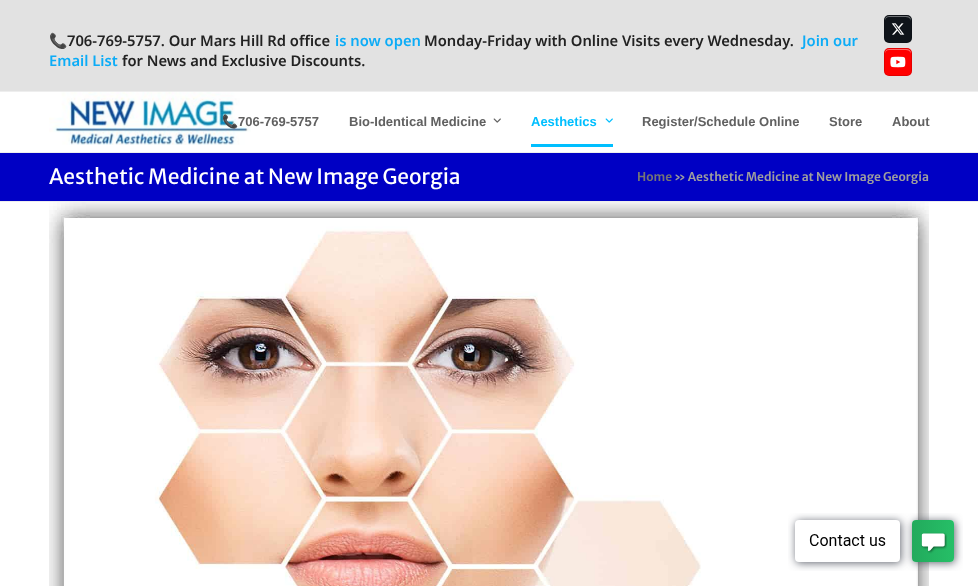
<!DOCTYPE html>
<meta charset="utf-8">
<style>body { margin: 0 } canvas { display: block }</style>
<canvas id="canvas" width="978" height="586"></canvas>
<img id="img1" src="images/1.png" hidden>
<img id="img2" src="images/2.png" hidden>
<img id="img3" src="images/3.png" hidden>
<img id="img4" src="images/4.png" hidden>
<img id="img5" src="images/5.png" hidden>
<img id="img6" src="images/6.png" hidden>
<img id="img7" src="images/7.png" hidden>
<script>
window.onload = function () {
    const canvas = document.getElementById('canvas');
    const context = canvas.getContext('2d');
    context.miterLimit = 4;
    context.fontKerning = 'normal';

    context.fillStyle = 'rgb(255, 255, 255)';
    context.fillRect(0, 0, 978, 586);
    context.fillStyle = 'rgb(226, 226, 226)';
    context.fillRect(0, 0, 978, 91);
    context.fillStyle = 'rgb(238, 238, 238)';
    context.fillRect(0, 91, 978, 1);
    context.fillStyle = 'rgb(15, 20, 26)';
    context.beginPath();
    context.roundRect(884, 15, 28, 28, 5);
    context.fill();
    context.fillStyle = 'rgb(111, 114, 118)';
    context.beginPath();
    context.moveTo(889, 17);
    context.lineTo(904, 17);
    context.bezierCurveTo(909, 17, 910.5, 18.5, 911, 21);
    context.bezierCurveTo(911, 16, 908.5, 16, 904, 16);
    context.lineTo(892, 16);
    context.bezierCurveTo(888, 16, 885, 16, 885, 20.5);
    context.bezierCurveTo(885.5, 18.5, 886.5, 17, 889, 17);
    context.closePath();
    context.fill();
    context.beginPath();
    context.roundRect(884.5, 15.5, 27, 27, 4.5);
    context.strokeStyle = 'rgba(0, 0, 0, 0.1)';
    context.stroke();
    context.drawImage(document.getElementById('img1'), 891, 23, 14, 12);
    context.fillStyle = 'rgb(255, 0, 0)';
    context.beginPath();
    context.roundRect(884, 48, 28, 28, 5);
    context.fill();
    context.fillStyle = 'rgb(255, 102, 102)';
    context.beginPath();
    context.moveTo(889, 50);
    context.lineTo(904, 50);
    context.bezierCurveTo(909, 50, 910.5, 51.5, 911, 54);
    context.bezierCurveTo(911, 49, 908.5, 49, 904, 49);
    context.lineTo(892, 49);
    context.bezierCurveTo(888, 49, 885, 49, 885, 53.5);
    context.bezierCurveTo(885.5, 51.5, 886.5, 50, 889, 50);
    context.closePath();
    context.fill();
    context.beginPath();
    context.roundRect(884.5, 48.5, 27, 27, 4.5);
    context.stroke();
    context.drawImage(document.getElementById('img2'), 890, 56, 16, 12);
    context.drawImage(document.getElementById('img3'), 49, 92, 202, 53);
    context.drawImage(document.getElementById('img4'), 493, 118, 8, 5);
    context.drawImage(document.getElementById('img5'), 605, 118, 8, 5);
    context.fillStyle = 'rgb(0, 191, 255)';
    context.fillRect(531, 144, 82, 3);
    context.fillStyle = 'rgb(0, 0, 196)';
    context.fillRect(0, 153, 978, 48);
    context.fillStyle = 'rgb(238, 238, 238)';
    context.fillRect(0, 152, 978, 1);
    context.fillRect(0, 201, 978, 1);
    context.drawImage(document.getElementById('img6'), 49, 202, 880, 384);
    context.drawImage(document.getElementById('img7'), 788, 513, 175, 58);
    context.font = '14.75px Noto Color Emoji';
    context.fillStyle = 'rgb(34, 34, 34)';
    context.fillText('📞', 49, 46);
    context.font = '600 14.75px Noto Sans';
    context.fillText('706-769-5757. Our Mars Hill Rd office', 67, 46);
    context.fillStyle = 'rgb(12, 172, 247)';
    context.fillText('is now open', 335, 46);
    context.fillStyle = 'rgb(34, 34, 34)';
    context.fillText('Monday-Friday with Online Visits every Wednesday.', 424, 46);
    context.fillStyle = 'rgb(12, 172, 247)';
    context.fillText('Join our', 802, 46);
    context.fillText('Email List', 49, 66);
    context.fillStyle = 'rgb(34, 34, 34)';
    context.fillText('for News and Exclusive Discounts.', 122, 66);
    context.font = 'bold 13px Noto Color Emoji';
    context.fillStyle = 'rgb(97, 97, 97)';
    context.fillText('📞', 222, 126);
    context.font = 'bold 13px Liberation Sans';
    context.fillText('706-769-5757', 238, 126);
    context.fillText('Bio-Identical Medicine', 349, 126);
    context.fillStyle = 'rgb(0, 191, 255)';
    context.fillText('Aesthetics', 531, 126);
    context.fillStyle = 'rgb(97, 97, 97)';
    context.fillText('Register/Schedule Online', 642, 126);
    context.fillText('Store', 829, 126);
    context.fillText('About', 892, 126);
    context.font = '21px Merriweather Sans';
    context.fillStyle = 'rgb(255, 255, 255)';
    context.fillText('Aesthetic Medicine at New Image Georgia', 49, 184);
    context.font = '600 12px Merriweather Sans';
    context.fillStyle = 'rgb(117, 117, 117)';
    context.fillText('Home', 637, 181);
    context.fillStyle = 'rgb(158, 158, 158)';
    context.fillText('» Aesthetic Medicine at New Image Georgia', 674, 181);
};
</script>
